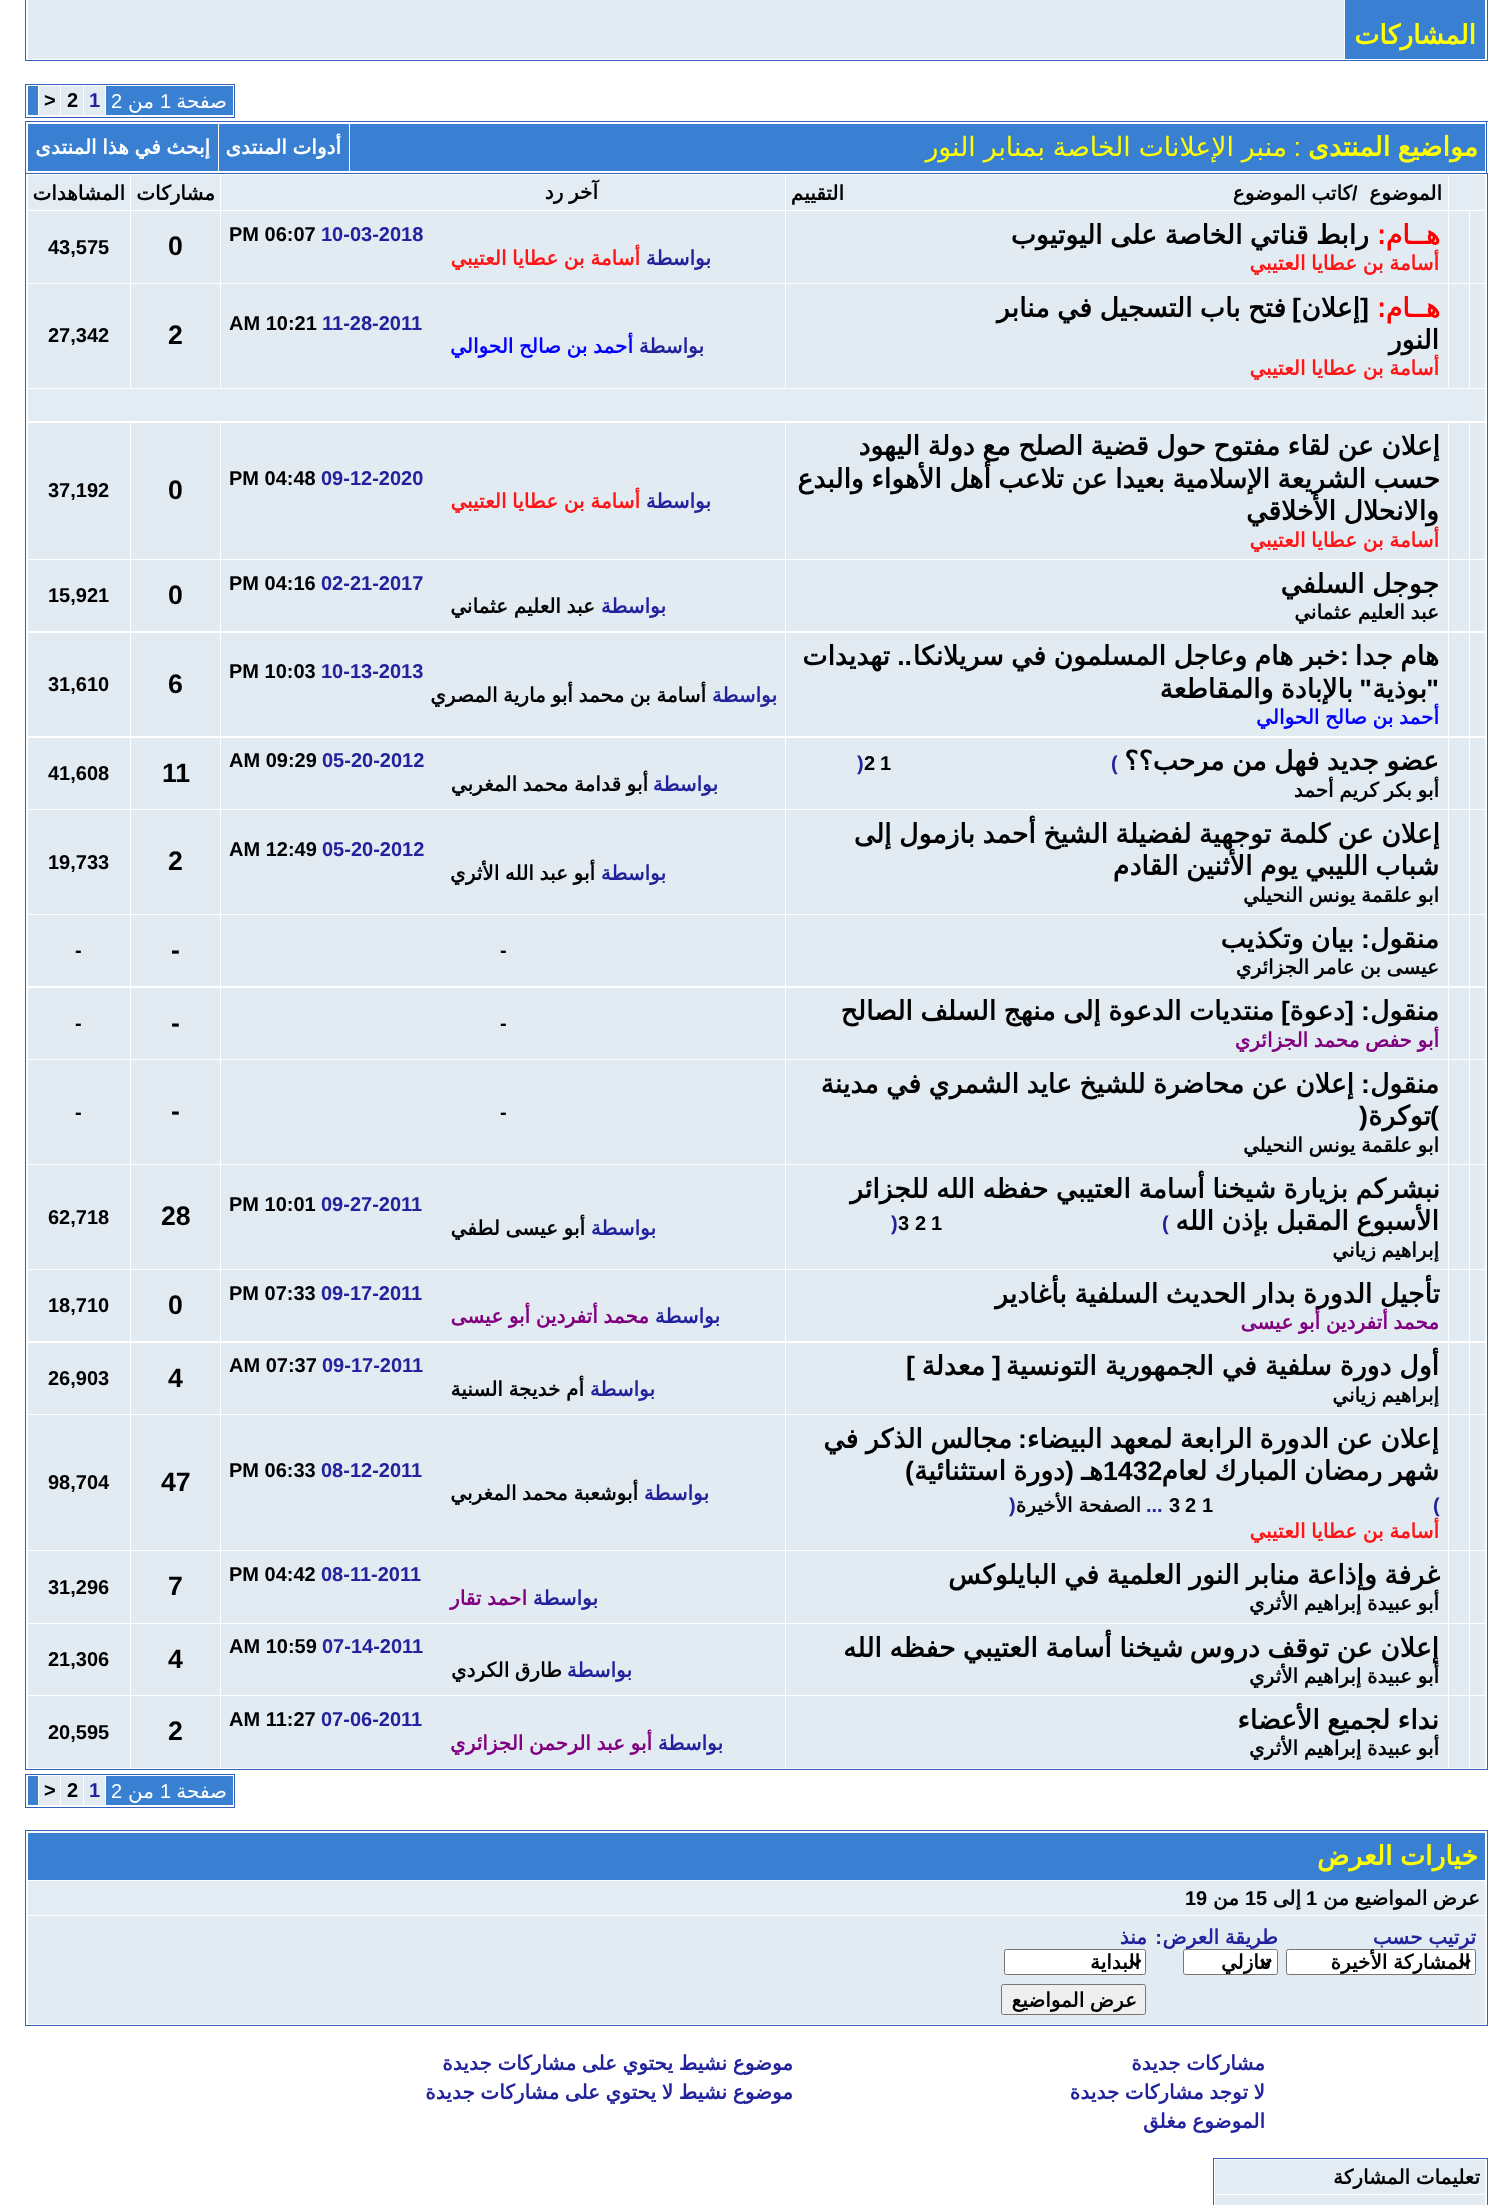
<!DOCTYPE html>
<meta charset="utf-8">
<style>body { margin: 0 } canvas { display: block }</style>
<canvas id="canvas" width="1512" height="2205"></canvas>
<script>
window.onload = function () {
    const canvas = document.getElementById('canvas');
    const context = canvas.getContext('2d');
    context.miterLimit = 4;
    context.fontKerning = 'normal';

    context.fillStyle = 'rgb(255, 255, 255)';
    context.fillRect(0, 0, 1512, 2205);
    context.strokeStyle = 'rgb(50, 98, 189)';
    context.strokeRect(25.5, -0.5, 1462, 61);
    context.fillStyle = 'rgb(57, 128, 210)';
    context.fillRect(1345, 0, 140, 59);
    context.fillStyle = 'rgb(226, 234, 242)';
    context.fillRect(28, 0, 1316, 59);
    context.strokeRect(25.5, 84.5, 209, 33);
    context.fillStyle = 'rgb(57, 128, 210)';
    context.fillRect(106, 86, 127, 29);
    context.fillStyle = 'rgb(226, 234, 242)';
    context.fillRect(84, 86, 21, 29);
    context.fillRect(61, 86, 22, 29);
    context.fillRect(39, 86, 21, 29);
    context.fillStyle = 'rgb(57, 128, 210)';
    context.fillRect(28, 86, 10, 29);
    context.fillStyle = 'rgb(50, 98, 189)';
    context.fillRect(25, 121, 1463, 1);
    context.fillRect(1486, 121, 1, 52);
    context.fillRect(25, 121, 1, 52);
    context.fillStyle = 'rgb(57, 128, 210)';
    context.fillRect(350, 124, 1135, 47);
    context.fillRect(219, 124, 130, 47);
    context.fillRect(28, 124, 190, 47);
    context.strokeRect(25.5, 173.5, 1462, 1596);
    context.fillStyle = 'rgb(227, 235, 243)';
    context.fillRect(1449, 175, 36, 35);
    context.fillRect(786, 175, 662, 35);
    context.fillRect(221, 175, 564, 35);
    context.fillRect(131, 175, 89, 35);
    context.fillRect(28, 175, 102, 35);
    context.fillStyle = 'rgb(226, 234, 242)';
    context.fillRect(1470, 211, 15, 72);
    context.fillRect(1449, 211, 20, 72);
    context.fillRect(786, 211, 662, 72);
    context.fillRect(221, 211, 564, 72);
    context.fillRect(131, 211, 89, 72);
    context.fillRect(28, 211, 102, 72);
    context.fillRect(1470, 284, 15, 104);
    context.fillRect(1449, 284, 20, 104);
    context.fillRect(786, 284, 662, 104);
    context.fillRect(221, 284, 564, 104);
    context.fillRect(131, 284, 89, 104);
    context.fillRect(28, 284, 102, 104);
    context.fillStyle = 'rgb(227, 235, 243)';
    context.fillRect(28, 389, 1457, 32);
    context.fillStyle = 'rgb(226, 234, 242)';
    context.fillRect(1470, 423, 15, 136);
    context.fillRect(1449, 423, 20, 136);
    context.fillRect(786, 423, 662, 136);
    context.fillRect(221, 423, 564, 136);
    context.fillRect(131, 423, 89, 136);
    context.fillRect(28, 423, 102, 136);
    context.fillRect(1470, 560, 15, 71);
    context.fillRect(1449, 560, 20, 71);
    context.fillRect(786, 560, 662, 71);
    context.fillRect(221, 560, 564, 71);
    context.fillRect(131, 560, 89, 71);
    context.fillRect(28, 560, 102, 71);
    context.fillRect(1470, 633, 15, 103);
    context.fillRect(1449, 633, 20, 103);
    context.fillRect(786, 633, 662, 103);
    context.fillRect(221, 633, 564, 103);
    context.fillRect(131, 633, 89, 103);
    context.fillRect(28, 633, 102, 103);
    context.fillRect(1470, 738, 15, 71);
    context.fillRect(1449, 738, 20, 71);
    context.fillRect(786, 738, 662, 71);
    context.fillRect(221, 738, 564, 71);
    context.fillRect(131, 738, 89, 71);
    context.fillRect(28, 738, 102, 71);
    context.fillRect(1470, 810, 15, 104);
    context.fillRect(1449, 810, 20, 104);
    context.fillRect(786, 810, 662, 104);
    context.fillRect(221, 810, 564, 104);
    context.fillRect(131, 810, 89, 104);
    context.fillRect(28, 810, 102, 104);
    context.fillRect(1470, 915, 15, 71);
    context.fillRect(1449, 915, 20, 71);
    context.fillRect(786, 915, 662, 71);
    context.fillRect(221, 915, 564, 71);
    context.fillRect(131, 915, 89, 71);
    context.fillRect(28, 915, 102, 71);
    context.fillRect(1470, 988, 15, 71);
    context.fillRect(1449, 988, 20, 71);
    context.fillRect(786, 988, 662, 71);
    context.fillRect(221, 988, 564, 71);
    context.fillRect(131, 988, 89, 71);
    context.fillRect(28, 988, 102, 71);
    context.fillRect(1470, 1060, 15, 104);
    context.fillRect(1449, 1060, 20, 104);
    context.fillRect(786, 1060, 662, 104);
    context.fillRect(221, 1060, 564, 104);
    context.fillRect(131, 1060, 89, 104);
    context.fillRect(28, 1060, 102, 104);
    context.fillRect(1470, 1165, 15, 104);
    context.fillRect(1449, 1165, 20, 104);
    context.fillRect(786, 1165, 662, 104);
    context.fillRect(221, 1165, 564, 104);
    context.fillRect(131, 1165, 89, 104);
    context.fillRect(28, 1165, 102, 104);
    context.fillRect(1470, 1270, 15, 71);
    context.fillRect(1449, 1270, 20, 71);
    context.fillRect(786, 1270, 662, 71);
    context.fillRect(221, 1270, 564, 71);
    context.fillRect(131, 1270, 89, 71);
    context.fillRect(28, 1270, 102, 71);
    context.fillRect(1470, 1343, 15, 71);
    context.fillRect(1449, 1343, 20, 71);
    context.fillRect(786, 1343, 662, 71);
    context.fillRect(221, 1343, 564, 71);
    context.fillRect(131, 1343, 89, 71);
    context.fillRect(28, 1343, 102, 71);
    context.fillRect(1470, 1415, 15, 135);
    context.fillRect(1449, 1415, 20, 135);
    context.fillRect(786, 1415, 662, 135);
    context.fillRect(221, 1415, 564, 135);
    context.fillRect(131, 1415, 89, 135);
    context.fillRect(28, 1415, 102, 135);
    context.fillRect(1470, 1551, 15, 72);
    context.fillRect(1449, 1551, 20, 72);
    context.fillRect(786, 1551, 662, 72);
    context.fillRect(221, 1551, 564, 72);
    context.fillRect(131, 1551, 89, 72);
    context.fillRect(28, 1551, 102, 72);
    context.fillRect(1470, 1624, 15, 71);
    context.fillRect(1449, 1624, 20, 71);
    context.fillRect(786, 1624, 662, 71);
    context.fillRect(221, 1624, 564, 71);
    context.fillRect(131, 1624, 89, 71);
    context.fillRect(28, 1624, 102, 71);
    context.fillRect(1470, 1696, 15, 72);
    context.fillRect(1449, 1696, 20, 72);
    context.fillRect(786, 1696, 662, 72);
    context.fillRect(221, 1696, 564, 72);
    context.fillRect(131, 1696, 89, 72);
    context.fillRect(28, 1696, 102, 72);
    context.strokeRect(25.5, 1774.5, 209, 33);
    context.fillStyle = 'rgb(57, 128, 210)';
    context.fillRect(106, 1776, 127, 29);
    context.fillStyle = 'rgb(226, 234, 242)';
    context.fillRect(84, 1776, 21, 29);
    context.fillRect(61, 1776, 22, 29);
    context.fillRect(39, 1776, 21, 29);
    context.fillStyle = 'rgb(57, 128, 210)';
    context.fillRect(28, 1776, 10, 29);
    context.strokeRect(25.5, 1830.5, 1462, 195);
    context.fillRect(28, 1833, 1457, 47);
    context.fillStyle = 'rgb(227, 235, 243)';
    context.fillRect(28, 1881, 1457, 34);
    context.fillStyle = 'rgb(226, 234, 242)';
    context.fillRect(28, 1916, 1457, 108);
    context.fillStyle = 'rgb(255, 255, 255)';
    context.beginPath();
    context.roundRect(1286.5, 1949.5, 189, 25, 2);
    context.fill();
    context.strokeStyle = 'rgb(118, 118, 118)';
    context.stroke();
    context.beginPath();
    context.moveTo(1460, 1960);
    context.lineTo(1465, 1965);
    context.lineTo(1470, 1960);
    context.strokeStyle = 'rgb(0, 0, 0)';
    context.lineWidth = 2.5;
    context.stroke();
    context.beginPath();
    context.roundRect(1183.5, 1949.5, 94, 25, 2);
    context.fill();
    context.strokeStyle = 'rgb(118, 118, 118)';
    context.lineWidth = 1;
    context.stroke();
    context.beginPath();
    context.moveTo(1261, 1960);
    context.lineTo(1266, 1965);
    context.lineTo(1271, 1960);
    context.strokeStyle = 'rgb(0, 0, 0)';
    context.lineWidth = 2.5;
    context.stroke();
    context.beginPath();
    context.roundRect(1004.5, 1949.5, 141, 25, 2);
    context.fill();
    context.strokeStyle = 'rgb(118, 118, 118)';
    context.lineWidth = 1;
    context.stroke();
    context.beginPath();
    context.moveTo(1130.5, 1960);
    context.lineTo(1135.5, 1965);
    context.lineTo(1140.5, 1960);
    context.strokeStyle = 'rgb(0, 0, 0)';
    context.lineWidth = 2.5;
    context.stroke();
    context.fillStyle = 'rgb(239, 239, 239)';
    context.beginPath();
    context.roundRect(1001.5, 1984.5, 144, 30, 2);
    context.fill();
    context.strokeStyle = 'rgb(118, 118, 118)';
    context.lineWidth = 1;
    context.stroke();
    context.strokeStyle = 'rgb(50, 98, 189)';
    context.strokeRect(1213.5, 2158.5, 274, 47);
    context.fillStyle = 'rgb(227, 235, 243)';
    context.fillRect(1215, 2160, 270, 34);
    context.fillStyle = 'rgb(226, 234, 242)';
    context.fillRect(1215, 2195, 270, 10);
    context.direction = 'rtl';
    context.font = 'bold 26.7px DejaVu Sans';
    context.fillStyle = 'rgb(255, 255, 0)';
    context.fillText('المشاركات', 1476, 44);
    context.font = '20px DejaVu Sans';
    context.fillStyle = 'rgb(255, 255, 255)';
    context.fillText('صفحة', 227, 108);
    context.direction = 'ltr';
    context.font = '20px Liberation Sans';
    context.fillText('1', 160, 108);
    context.direction = 'rtl';
    context.font = '20px DejaVu Sans';
    context.fillText('من', 154, 108);
    context.direction = 'ltr';
    context.font = '20px Liberation Sans';
    context.fillText('2', 111, 108);
    context.font = 'bold 20px Liberation Sans';
    context.fillStyle = 'rgb(34, 34, 156)';
    context.fillText('1', 89, 107);
    context.fillStyle = 'rgb(0, 0, 0)';
    context.fillText('2', 67, 107);
    context.fillText('>', 44, 107);
    context.wordSpacing = '-1px';
    context.direction = 'rtl';
    context.font = 'bold 26.7px DejaVu Sans';
    context.fillStyle = 'rgb(255, 255, 0)';
    context.fillText('مواضيع المنتدى', 1478, 156);
    context.wordSpacing = '0px';
    context.font = '26.7px Liberation Sans';
    context.fillText(':', 1301, 156);
    context.wordSpacing = '-0.5px';
    context.font = '26.7px DejaVu Sans';
    context.fillText('منبر الإعلانات الخاصة بمنابر النور', 1287, 156);
    context.wordSpacing = '-0.75px';
    context.font = 'bold 20px DejaVu Sans';
    context.fillStyle = 'rgb(255, 255, 255)';
    context.fillText('أدوات المنتدى', 341, 154);
    context.fillText('إبحث في هذا المنتدى', 210, 154);
    context.wordSpacing = '0px';
    context.fillStyle = 'rgb(0, 0, 0)';
    context.fillText('الموضوع', 1442, 200);
    context.direction = 'ltr';
    context.font = 'bold 20px Liberation Sans';
    context.fillText('/', 1352, 200);
    context.wordSpacing = '-0.75px';
    context.direction = 'rtl';
    context.font = 'bold 20px DejaVu Sans';
    context.fillText('كاتب الموضوع', 1352, 200);
    context.wordSpacing = '0px';
    context.fillText('التقييم', 844, 200);
    context.wordSpacing = '-0.75px';
    context.fillText('آخر رد', 598, 199);
    context.wordSpacing = '0px';
    context.fillText('مشاركات', 215, 200);
    context.fillText('المشاهدات', 125, 200);
    context.font = 'bold 26.7px DejaVu Sans';
    context.fillStyle = 'rgb(255, 0, 0)';
    context.fillText('هــام:', 1440, 244);
    context.wordSpacing = '-1px';
    context.fillStyle = 'rgb(0, 0, 0)';
    context.fillText('رابط قناتي الخاصة على اليوتيوب', 1369, 244);
    context.wordSpacing = '-0.75px';
    context.font = 'bold 20px DejaVu Sans';
    context.fillStyle = 'rgb(255, 21, 21)';
    context.fillText('أسامة بن عطايا العتيبي', 1439, 270);
    context.wordSpacing = '0px';
    context.direction = 'ltr';
    context.font = 'bold 20px Liberation Sans';
    context.fillStyle = 'rgb(34, 34, 156)';
    context.fillText('10-03-2018', 321, 241);
    context.fillStyle = 'rgb(0, 0, 0)';
    context.fillText('PM 06:07', 229, 241);
    context.direction = 'rtl';
    context.font = 'bold 20px DejaVu Sans';
    context.fillStyle = 'rgb(34, 34, 156)';
    context.fillText('بواسطة', 711, 265);
    context.wordSpacing = '-0.75px';
    context.fillStyle = 'rgb(255, 21, 21)';
    context.fillText('أسامة بن عطايا العتيبي', 640, 265);
    context.wordSpacing = '0px';
    context.direction = 'ltr';
    context.font = 'bold 26.7px Liberation Sans';
    context.fillStyle = 'rgb(0, 0, 0)';
    context.fillText('0', 168, 255);
    context.font = 'bold 20px Liberation Sans';
    context.fillText('43,575', 48, 254);
    context.direction = 'rtl';
    context.font = 'bold 26.7px DejaVu Sans';
    context.fillStyle = 'rgb(255, 0, 0)';
    context.fillText('هــام:', 1440, 317);
    context.font = 'bold 26.7px Liberation Sans';
    context.fillStyle = 'rgb(0, 0, 0)';
    context.fillText('[', 1369, 317);
    context.font = 'bold 26.7px DejaVu Sans';
    context.fillText('إعلان', 1360, 317);
    context.font = 'bold 26.7px Liberation Sans';
    context.fillText(']', 1301, 317);
    context.wordSpacing = '-1px';
    context.font = 'bold 26.7px DejaVu Sans';
    context.fillText('فتح باب التسجيل في منابر', 1286, 317);
    context.wordSpacing = '0px';
    context.fillText('النور', 1439, 349);
    context.wordSpacing = '-0.75px';
    context.font = 'bold 20px DejaVu Sans';
    context.fillStyle = 'rgb(255, 21, 21)';
    context.fillText('أسامة بن عطايا العتيبي', 1439, 375);
    context.wordSpacing = '0px';
    context.direction = 'ltr';
    context.font = 'bold 20px Liberation Sans';
    context.fillStyle = 'rgb(34, 34, 156)';
    context.fillText('11-28-2011', 322, 330);
    context.fillStyle = 'rgb(0, 0, 0)';
    context.fillText('AM 10:21', 229, 330);
    context.direction = 'rtl';
    context.font = 'bold 20px DejaVu Sans';
    context.fillStyle = 'rgb(34, 34, 156)';
    context.fillText('بواسطة', 704, 353);
    context.wordSpacing = '-0.75px';
    context.fillStyle = 'rgb(0, 0, 255)';
    context.fillText('أحمد بن صالح الحوالي', 633, 353);
    context.wordSpacing = '0px';
    context.direction = 'ltr';
    context.font = 'bold 26.7px Liberation Sans';
    context.fillStyle = 'rgb(0, 0, 0)';
    context.fillText('2', 168, 344);
    context.font = 'bold 20px Liberation Sans';
    context.fillText('27,342', 48, 342);
    context.wordSpacing = '-1px';
    context.direction = 'rtl';
    context.font = 'bold 26.7px DejaVu Sans';
    context.fillText('إعلان عن لقاء مفتوح حول قضية الصلح مع دولة اليهود', 1440, 455);
    context.fillText('حسب الشريعة الإسلامية بعيدا عن تلاعب أهل الأهواء والبدع', 1440, 488);
    context.fillText('والانحلال الأخلاقي', 1439, 520);
    context.wordSpacing = '-0.75px';
    context.font = 'bold 20px DejaVu Sans';
    context.fillStyle = 'rgb(255, 21, 21)';
    context.fillText('أسامة بن عطايا العتيبي', 1439, 547);
    context.wordSpacing = '0px';
    context.direction = 'ltr';
    context.font = 'bold 20px Liberation Sans';
    context.fillStyle = 'rgb(34, 34, 156)';
    context.fillText('09-12-2020', 321, 485);
    context.fillStyle = 'rgb(0, 0, 0)';
    context.fillText('PM 04:48', 229, 485);
    context.direction = 'rtl';
    context.font = 'bold 20px DejaVu Sans';
    context.fillStyle = 'rgb(34, 34, 156)';
    context.fillText('بواسطة', 711, 508);
    context.wordSpacing = '-0.75px';
    context.fillStyle = 'rgb(255, 21, 21)';
    context.fillText('أسامة بن عطايا العتيبي', 640, 508);
    context.wordSpacing = '0px';
    context.direction = 'ltr';
    context.font = 'bold 26.7px Liberation Sans';
    context.fillStyle = 'rgb(0, 0, 0)';
    context.fillText('0', 168, 499);
    context.font = 'bold 20px Liberation Sans';
    context.fillText('37,192', 48, 497);
    context.wordSpacing = '-1px';
    context.direction = 'rtl';
    context.font = 'bold 26.7px DejaVu Sans';
    context.fillText('جوجل السلفي', 1439, 593);
    context.wordSpacing = '-0.75px';
    context.font = 'bold 20px DejaVu Sans';
    context.fillText('عبد العليم عثماني', 1439, 619);
    context.wordSpacing = '0px';
    context.direction = 'ltr';
    context.font = 'bold 20px Liberation Sans';
    context.fillStyle = 'rgb(34, 34, 156)';
    context.fillText('02-21-2017', 321, 590);
    context.fillStyle = 'rgb(0, 0, 0)';
    context.fillText('PM 04:16', 229, 590);
    context.direction = 'rtl';
    context.font = 'bold 20px DejaVu Sans';
    context.fillStyle = 'rgb(34, 34, 156)';
    context.fillText('بواسطة', 666, 613);
    context.wordSpacing = '-0.75px';
    context.fillStyle = 'rgb(0, 0, 0)';
    context.fillText('عبد العليم عثماني', 595, 613);
    context.wordSpacing = '0px';
    context.direction = 'ltr';
    context.font = 'bold 26.7px Liberation Sans';
    context.fillText('0', 168, 604);
    context.font = 'bold 20px Liberation Sans';
    context.fillText('15,921', 48, 602);
    context.wordSpacing = '-1px';
    context.direction = 'rtl';
    context.font = 'bold 26.7px DejaVu Sans';
    context.fillText('هام جدا', 1439, 665);
    context.wordSpacing = '0px';
    context.font = 'bold 26.7px Liberation Sans';
    context.fillText(':', 1349, 665);
    context.wordSpacing = '-1px';
    context.font = 'bold 26.7px DejaVu Sans';
    context.fillText('خبر هام وعاجل المسلمون في سريلانكا', 1340, 665);
    context.wordSpacing = '0px';
    context.font = 'bold 26.7px Liberation Sans';
    context.fillText('..', 912, 665);
    context.font = 'bold 26.7px DejaVu Sans';
    context.fillText('تهديدات', 890, 665);
    context.font = 'bold 26.7px Liberation Sans';
    context.fillText('"', 1439, 698);
    context.font = 'bold 26.7px DejaVu Sans';
    context.fillText('بوذية', 1427, 698);
    context.font = 'bold 26.7px Liberation Sans';
    context.fillText('"', 1372, 698);
    context.wordSpacing = '-1px';
    context.font = 'bold 26.7px DejaVu Sans';
    context.fillText('بالإبادة والمقاطعة', 1353, 698);
    context.wordSpacing = '-0.75px';
    context.font = 'bold 20px DejaVu Sans';
    context.fillStyle = 'rgb(0, 0, 255)';
    context.fillText('أحمد بن صالح الحوالي', 1439, 724);
    context.wordSpacing = '0px';
    context.direction = 'ltr';
    context.font = 'bold 20px Liberation Sans';
    context.fillStyle = 'rgb(34, 34, 156)';
    context.fillText('10-13-2013', 321, 678);
    context.fillStyle = 'rgb(0, 0, 0)';
    context.fillText('PM 10:03', 229, 678);
    context.direction = 'rtl';
    context.font = 'bold 20px DejaVu Sans';
    context.fillStyle = 'rgb(34, 34, 156)';
    context.fillText('بواسطة', 777, 702);
    context.wordSpacing = '-0.75px';
    context.fillStyle = 'rgb(0, 0, 0)';
    context.fillText('أسامة بن محمد أبو مارية المصري', 706, 702);
    context.wordSpacing = '0px';
    context.direction = 'ltr';
    context.font = 'bold 26.7px Liberation Sans';
    context.fillText('6', 168, 693);
    context.font = 'bold 20px Liberation Sans';
    context.fillText('31,610', 48, 691);
    context.wordSpacing = '-1px';
    context.direction = 'rtl';
    context.font = 'bold 26.7px DejaVu Sans';
    context.fillText('عضو جديد فهل من مرحب؟؟', 1439, 770);
    context.wordSpacing = '0px';
    context.direction = 'ltr';
    context.font = 'bold 20px Liberation Sans';
    context.fillStyle = 'rgb(34, 34, 156)';
    context.fillText('(', 1111, 770);
    context.fillStyle = 'rgb(0, 0, 0)';
    context.fillText('1', 880, 770);
    context.fillText('2', 864, 770);
    context.fillStyle = 'rgb(34, 34, 156)';
    context.fillText(')', 857, 770);
    context.wordSpacing = '-0.75px';
    context.direction = 'rtl';
    context.font = 'bold 20px DejaVu Sans';
    context.fillStyle = 'rgb(0, 0, 0)';
    context.fillText('أبو بكر كريم أحمد', 1439, 797);
    context.wordSpacing = '0px';
    context.direction = 'ltr';
    context.font = 'bold 20px Liberation Sans';
    context.fillStyle = 'rgb(34, 34, 156)';
    context.fillText('05-20-2012', 322, 767);
    context.fillStyle = 'rgb(0, 0, 0)';
    context.fillText('AM 09:29', 229, 767);
    context.direction = 'rtl';
    context.font = 'bold 20px DejaVu Sans';
    context.fillStyle = 'rgb(34, 34, 156)';
    context.fillText('بواسطة', 718, 791);
    context.wordSpacing = '-0.75px';
    context.fillStyle = 'rgb(0, 0, 0)';
    context.fillText('أبو قدامة محمد المغربي', 648, 791);
    context.wordSpacing = '0px';
    context.direction = 'ltr';
    context.font = 'bold 26.7px Liberation Sans';
    context.fillText('11', 162, 782);
    context.font = 'bold 20px Liberation Sans';
    context.fillText('41,608', 48, 780);
    context.wordSpacing = '-1px';
    context.direction = 'rtl';
    context.font = 'bold 26.7px DejaVu Sans';
    context.fillText('إعلان عن كلمة توجهية لفضيلة الشيخ أحمد بازمول إلى', 1440, 843);
    context.fillText('شباب الليبي يوم الأثنين القادم', 1439, 875);
    context.wordSpacing = '-0.75px';
    context.font = 'bold 20px DejaVu Sans';
    context.fillText('ابو علقمة يونس النحيلي', 1439, 902);
    context.wordSpacing = '0px';
    context.direction = 'ltr';
    context.font = 'bold 20px Liberation Sans';
    context.fillStyle = 'rgb(34, 34, 156)';
    context.fillText('05-20-2012', 322, 856);
    context.fillStyle = 'rgb(0, 0, 0)';
    context.fillText('AM 12:49', 229, 856);
    context.direction = 'rtl';
    context.font = 'bold 20px DejaVu Sans';
    context.fillStyle = 'rgb(34, 34, 156)';
    context.fillText('بواسطة', 666, 880);
    context.wordSpacing = '-0.75px';
    context.fillStyle = 'rgb(0, 0, 0)';
    context.fillText('أبو عبد الله الأثري', 595, 880);
    context.wordSpacing = '0px';
    context.direction = 'ltr';
    context.font = 'bold 26.7px Liberation Sans';
    context.fillText('2', 168, 870);
    context.font = 'bold 20px Liberation Sans';
    context.fillText('19,733', 48, 869);
    context.direction = 'rtl';
    context.font = 'bold 26.7px DejaVu Sans';
    context.fillText('منقول', 1439, 948);
    context.font = 'bold 26.7px Liberation Sans';
    context.fillText(':', 1370, 948);
    context.wordSpacing = '-1px';
    context.font = 'bold 26.7px DejaVu Sans';
    context.fillText('بيان وتكذيب', 1354, 948);
    context.wordSpacing = '-0.75px';
    context.font = 'bold 20px DejaVu Sans';
    context.fillText('عيسى بن عامر الجزائري', 1439, 974);
    context.wordSpacing = '0px';
    context.direction = 'ltr';
    context.font = 'bold 20px Liberation Sans';
    context.fillText('-', 500, 957);
    context.font = 'bold 26.7px Liberation Sans';
    context.fillText('-', 171, 959);
    context.font = 'bold 20px Liberation Sans';
    context.fillText('-', 75, 957);
    context.direction = 'rtl';
    context.font = 'bold 26.7px DejaVu Sans';
    context.fillText('منقول', 1439, 1020);
    context.font = 'bold 26.7px Liberation Sans';
    context.fillText(':', 1370, 1020);
    context.fillText('[', 1354, 1020);
    context.font = 'bold 26.7px DejaVu Sans';
    context.fillText('دعوة', 1345, 1020);
    context.font = 'bold 26.7px Liberation Sans';
    context.fillText(']', 1290, 1020);
    context.wordSpacing = '-1px';
    context.font = 'bold 26.7px DejaVu Sans';
    context.fillText('منتديات الدعوة إلى منهج السلف الصالح', 1274, 1020);
    context.wordSpacing = '-0.75px';
    context.font = 'bold 20px DejaVu Sans';
    context.fillStyle = 'rgb(128, 0, 128)';
    context.fillText('أبو حفص محمد الجزائري', 1439, 1047);
    context.wordSpacing = '0px';
    context.direction = 'ltr';
    context.font = 'bold 20px Liberation Sans';
    context.fillStyle = 'rgb(0, 0, 0)';
    context.fillText('-', 500, 1030);
    context.font = 'bold 26.7px Liberation Sans';
    context.fillText('-', 171, 1032);
    context.font = 'bold 20px Liberation Sans';
    context.fillText('-', 75, 1030);
    context.direction = 'rtl';
    context.font = 'bold 26.7px DejaVu Sans';
    context.fillText('منقول', 1439, 1093);
    context.font = 'bold 26.7px Liberation Sans';
    context.fillText(':', 1370, 1093);
    context.wordSpacing = '-1px';
    context.font = 'bold 26.7px DejaVu Sans';
    context.fillText('إعلان عن محاضرة للشيخ عايد الشمري في مدينة', 1354, 1093);
    context.wordSpacing = '0px';
    context.font = 'bold 26.7px Liberation Sans';
    context.fillText(')', 1439, 1125);
    context.font = 'bold 26.7px DejaVu Sans';
    context.fillText('توكرة', 1431, 1125);
    context.font = 'bold 26.7px Liberation Sans';
    context.fillText('(', 1368, 1125);
    context.wordSpacing = '-0.75px';
    context.font = 'bold 20px DejaVu Sans';
    context.fillText('ابو علقمة يونس النحيلي', 1439, 1152);
    context.wordSpacing = '0px';
    context.direction = 'ltr';
    context.font = 'bold 20px Liberation Sans';
    context.fillText('-', 500, 1119);
    context.font = 'bold 26.7px Liberation Sans';
    context.fillText('-', 171, 1120);
    context.font = 'bold 20px Liberation Sans';
    context.fillText('-', 75, 1119);
    context.wordSpacing = '-1px';
    context.direction = 'rtl';
    context.font = 'bold 26.7px DejaVu Sans';
    context.fillText('نبشركم بزيارة شيخنا أسامة العتيبي حفظه الله للجزائر', 1440, 1198);
    context.fillText('الأسبوع المقبل بإذن الله', 1439, 1230);
    context.wordSpacing = '0px';
    context.direction = 'ltr';
    context.font = 'bold 20px Liberation Sans';
    context.fillStyle = 'rgb(34, 34, 156)';
    context.fillText('(', 1162, 1230);
    context.fillStyle = 'rgb(0, 0, 0)';
    context.fillText('1', 931, 1230);
    context.fillText('2', 915, 1230);
    context.fillText('3', 898, 1230);
    context.fillStyle = 'rgb(34, 34, 156)';
    context.fillText(')', 891, 1230);
    context.wordSpacing = '-0.75px';
    context.direction = 'rtl';
    context.font = 'bold 20px DejaVu Sans';
    context.fillStyle = 'rgb(0, 0, 0)';
    context.fillText('إبراهيم زياني', 1439, 1257);
    context.wordSpacing = '0px';
    context.direction = 'ltr';
    context.font = 'bold 20px Liberation Sans';
    context.fillStyle = 'rgb(34, 34, 156)';
    context.fillText('09-27-2011', 321, 1211);
    context.fillStyle = 'rgb(0, 0, 0)';
    context.fillText('PM 10:01', 229, 1211);
    context.direction = 'rtl';
    context.font = 'bold 20px DejaVu Sans';
    context.fillStyle = 'rgb(34, 34, 156)';
    context.fillText('بواسطة', 656, 1235);
    context.wordSpacing = '-0.75px';
    context.fillStyle = 'rgb(0, 0, 0)';
    context.fillText('أبو عيسى لطفي', 585, 1235);
    context.wordSpacing = '0px';
    context.direction = 'ltr';
    context.font = 'bold 26.7px Liberation Sans';
    context.fillText('28', 161, 1225);
    context.font = 'bold 20px Liberation Sans';
    context.fillText('62,718', 48, 1224);
    context.wordSpacing = '-1px';
    context.direction = 'rtl';
    context.font = 'bold 26.7px DejaVu Sans';
    context.fillText('تأجيل الدورة بدار الحديث السلفية بأغادير', 1440, 1303);
    context.wordSpacing = '-0.75px';
    context.font = 'bold 20px DejaVu Sans';
    context.fillStyle = 'rgb(128, 0, 128)';
    context.fillText('محمد أتفردين أبو عيسى', 1439, 1329);
    context.wordSpacing = '0px';
    context.direction = 'ltr';
    context.font = 'bold 20px Liberation Sans';
    context.fillStyle = 'rgb(34, 34, 156)';
    context.fillText('09-17-2011', 321, 1300);
    context.fillStyle = 'rgb(0, 0, 0)';
    context.fillText('PM 07:33', 229, 1300);
    context.direction = 'rtl';
    context.font = 'bold 20px DejaVu Sans';
    context.fillStyle = 'rgb(34, 34, 156)';
    context.fillText('بواسطة', 720, 1323);
    context.wordSpacing = '-0.75px';
    context.fillStyle = 'rgb(128, 0, 128)';
    context.fillText('محمد أتفردين أبو عيسى', 649, 1323);
    context.wordSpacing = '0px';
    context.direction = 'ltr';
    context.font = 'bold 26.7px Liberation Sans';
    context.fillStyle = 'rgb(0, 0, 0)';
    context.fillText('0', 168, 1314);
    context.font = 'bold 20px Liberation Sans';
    context.fillText('18,710', 48, 1312);
    context.wordSpacing = '-0.5px';
    context.direction = 'rtl';
    context.font = 'bold 26.7px DejaVu Sans';
    context.fillText('أول دورة سلفية في الجمهورية التونسية', 1439, 1375);
    context.wordSpacing = '0px';
    context.font = 'bold 26.7px Liberation Sans';
    context.fillText('[', 1001, 1375);
    context.font = 'bold 26.7px DejaVu Sans';
    context.fillText('معدلة', 985, 1375);
    context.font = 'bold 26.7px Liberation Sans';
    context.fillText(']', 915, 1375);
    context.wordSpacing = '-0.75px';
    context.font = 'bold 20px DejaVu Sans';
    context.fillText('إبراهيم زياني', 1439, 1402);
    context.wordSpacing = '0px';
    context.direction = 'ltr';
    context.font = 'bold 20px Liberation Sans';
    context.fillStyle = 'rgb(34, 34, 156)';
    context.fillText('09-17-2011', 322, 1372);
    context.fillStyle = 'rgb(0, 0, 0)';
    context.fillText('AM 07:37', 229, 1372);
    context.direction = 'rtl';
    context.font = 'bold 20px DejaVu Sans';
    context.fillStyle = 'rgb(34, 34, 156)';
    context.fillText('بواسطة', 655, 1396);
    context.wordSpacing = '-0.75px';
    context.fillStyle = 'rgb(0, 0, 0)';
    context.fillText('أم خديجة السنية', 584, 1396);
    context.wordSpacing = '0px';
    context.direction = 'ltr';
    context.font = 'bold 26.7px Liberation Sans';
    context.fillText('4', 168, 1387);
    context.font = 'bold 20px Liberation Sans';
    context.fillText('26,903', 48, 1385);
    context.wordSpacing = '-1px';
    context.direction = 'rtl';
    context.font = 'bold 26.7px DejaVu Sans';
    context.fillText('إعلان عن الدورة الرابعة لمعهد البيضاء', 1439, 1448);
    context.wordSpacing = '0px';
    context.font = 'bold 26.7px Liberation Sans';
    context.fillText(':', 1027, 1448);
    context.wordSpacing = '-1px';
    context.font = 'bold 26.7px DejaVu Sans';
    context.fillText('مجالس الذكر في', 1012, 1448);
    context.fillText('شهر رمضان المبارك لعام', 1439, 1480);
    context.wordSpacing = '0px';
    context.direction = 'ltr';
    context.font = 'bold 26.7px Liberation Sans';
    context.fillText('1432', 1103, 1480);
    context.direction = 'rtl';
    context.font = 'bold 26.7px DejaVu Sans';
    context.fillText('هـ', 1103, 1480);
    context.font = 'bold 26.7px Liberation Sans';
    context.fillText('(', 1074, 1480);
    context.wordSpacing = '-1px';
    context.font = 'bold 26.7px DejaVu Sans';
    context.fillText('دورة استثنائية', 1065, 1480);
    context.wordSpacing = '0px';
    context.font = 'bold 26.7px Liberation Sans';
    context.fillText(')', 914, 1480);
    context.direction = 'ltr';
    context.font = 'bold 20px Liberation Sans';
    context.fillStyle = 'rgb(34, 34, 156)';
    context.fillText('(', 1433, 1512);
    context.fillStyle = 'rgb(0, 0, 0)';
    context.fillText('1', 1202, 1512);
    context.fillText('2', 1185, 1512);
    context.fillText('3', 1169, 1512);
    context.fillStyle = 'rgb(34, 34, 156)';
    context.fillText('...', 1146, 1512);
    context.wordSpacing = '-0.75px';
    context.direction = 'rtl';
    context.font = 'bold 20px DejaVu Sans';
    context.fillStyle = 'rgb(0, 0, 0)';
    context.fillText('الصفحة الأخيرة', 1141, 1512);
    context.wordSpacing = '0px';
    context.direction = 'ltr';
    context.font = 'bold 20px Liberation Sans';
    context.fillStyle = 'rgb(34, 34, 156)';
    context.fillText(')', 1009, 1512);
    context.wordSpacing = '-0.75px';
    context.direction = 'rtl';
    context.font = 'bold 20px DejaVu Sans';
    context.fillStyle = 'rgb(255, 21, 21)';
    context.fillText('أسامة بن عطايا العتيبي', 1439, 1538);
    context.wordSpacing = '0px';
    context.direction = 'ltr';
    context.font = 'bold 20px Liberation Sans';
    context.fillStyle = 'rgb(34, 34, 156)';
    context.fillText('08-12-2011', 321, 1477);
    context.fillStyle = 'rgb(0, 0, 0)';
    context.fillText('PM 06:33', 229, 1477);
    context.direction = 'rtl';
    context.font = 'bold 20px DejaVu Sans';
    context.fillStyle = 'rgb(34, 34, 156)';
    context.fillText('بواسطة', 709, 1500);
    context.wordSpacing = '-0.75px';
    context.fillStyle = 'rgb(0, 0, 0)';
    context.fillText('أبوشعبة محمد المغربي', 638, 1500);
    context.wordSpacing = '0px';
    context.direction = 'ltr';
    context.font = 'bold 26.7px Liberation Sans';
    context.fillText('47', 161, 1491);
    context.font = 'bold 20px Liberation Sans';
    context.fillText('98,704', 48, 1489);
    context.wordSpacing = '-1px';
    context.direction = 'rtl';
    context.font = 'bold 26.7px DejaVu Sans';
    context.fillText('غرفة وإذاعة منابر النور العلمية في البايلوكس', 1440, 1584);
    context.wordSpacing = '-0.75px';
    context.font = 'bold 20px DejaVu Sans';
    context.fillText('أبو عبيدة إبراهيم الأثري', 1439, 1610);
    context.wordSpacing = '0px';
    context.direction = 'ltr';
    context.font = 'bold 20px Liberation Sans';
    context.fillStyle = 'rgb(34, 34, 156)';
    context.fillText('08-11-2011', 321, 1581);
    context.fillStyle = 'rgb(0, 0, 0)';
    context.fillText('PM 04:42', 229, 1581);
    context.direction = 'rtl';
    context.font = 'bold 20px DejaVu Sans';
    context.fillStyle = 'rgb(34, 34, 156)';
    context.fillText('بواسطة', 598, 1605);
    context.wordSpacing = '-0.75px';
    context.fillStyle = 'rgb(128, 0, 128)';
    context.fillText('احمد تقار', 527, 1605);
    context.wordSpacing = '0px';
    context.direction = 'ltr';
    context.font = 'bold 26.7px Liberation Sans';
    context.fillStyle = 'rgb(0, 0, 0)';
    context.fillText('7', 168, 1595);
    context.font = 'bold 20px Liberation Sans';
    context.fillText('31,296', 48, 1594);
    context.wordSpacing = '-1px';
    context.direction = 'rtl';
    context.font = 'bold 26.7px DejaVu Sans';
    context.fillText('إعلان عن توقف دروس', 1439, 1657);
    context.fillText('شيخنا أسامة العتيبي حفظه الله', 1183, 1657);
    context.wordSpacing = '-0.75px';
    context.font = 'bold 20px DejaVu Sans';
    context.fillText('أبو عبيدة إبراهيم الأثري', 1439, 1683);
    context.wordSpacing = '0px';
    context.direction = 'ltr';
    context.font = 'bold 20px Liberation Sans';
    context.fillStyle = 'rgb(34, 34, 156)';
    context.fillText('07-14-2011', 322, 1653);
    context.fillStyle = 'rgb(0, 0, 0)';
    context.fillText('AM 10:59', 229, 1653);
    context.direction = 'rtl';
    context.font = 'bold 20px DejaVu Sans';
    context.fillStyle = 'rgb(34, 34, 156)';
    context.fillText('بواسطة', 632, 1677);
    context.wordSpacing = '-0.75px';
    context.fillStyle = 'rgb(0, 0, 0)';
    context.fillText('طارق الكردي', 562, 1677);
    context.wordSpacing = '0px';
    context.direction = 'ltr';
    context.font = 'bold 26.7px Liberation Sans';
    context.fillText('4', 168, 1668);
    context.font = 'bold 20px Liberation Sans';
    context.fillText('21,306', 48, 1666);
    context.wordSpacing = '-1px';
    context.direction = 'rtl';
    context.font = 'bold 26.7px DejaVu Sans';
    context.fillText('نداء لجميع الأعضاء', 1439, 1729);
    context.wordSpacing = '-0.75px';
    context.font = 'bold 20px DejaVu Sans';
    context.fillText('أبو عبيدة إبراهيم الأثري', 1439, 1755);
    context.wordSpacing = '0px';
    context.direction = 'ltr';
    context.font = 'bold 20px Liberation Sans';
    context.fillStyle = 'rgb(34, 34, 156)';
    context.fillText('07-06-2011', 321, 1726);
    context.fillStyle = 'rgb(0, 0, 0)';
    context.fillText('AM 11:27', 229, 1726);
    context.direction = 'rtl';
    context.font = 'bold 20px DejaVu Sans';
    context.fillStyle = 'rgb(34, 34, 156)';
    context.fillText('بواسطة', 723, 1750);
    context.wordSpacing = '-0.75px';
    context.fillStyle = 'rgb(128, 0, 128)';
    context.fillText('أبو عبد الرحمن الجزائري', 652, 1750);
    context.wordSpacing = '0px';
    context.direction = 'ltr';
    context.font = 'bold 26.7px Liberation Sans';
    context.fillStyle = 'rgb(0, 0, 0)';
    context.fillText('2', 168, 1740);
    context.font = 'bold 20px Liberation Sans';
    context.fillText('20,595', 48, 1739);
    context.direction = 'rtl';
    context.font = '20px DejaVu Sans';
    context.fillStyle = 'rgb(255, 255, 255)';
    context.fillText('صفحة', 227, 1798);
    context.direction = 'ltr';
    context.font = '20px Liberation Sans';
    context.fillText('1', 160, 1798);
    context.direction = 'rtl';
    context.font = '20px DejaVu Sans';
    context.fillText('من', 154, 1798);
    context.direction = 'ltr';
    context.font = '20px Liberation Sans';
    context.fillText('2', 111, 1798);
    context.font = 'bold 20px Liberation Sans';
    context.fillStyle = 'rgb(34, 34, 156)';
    context.fillText('1', 89, 1797);
    context.fillStyle = 'rgb(0, 0, 0)';
    context.fillText('2', 67, 1797);
    context.fillText('>', 44, 1797);
    context.wordSpacing = '-1px';
    context.direction = 'rtl';
    context.font = 'bold 26.7px DejaVu Sans';
    context.fillStyle = 'rgb(255, 255, 0)';
    context.fillText('خيارات العرض', 1478, 1865);
    context.wordSpacing = '-0.75px';
    context.font = 'bold 20px DejaVu Sans';
    context.fillStyle = 'rgb(0, 0, 0)';
    context.fillText('عرض المواضيع من', 1480, 1905);
    context.wordSpacing = '0px';
    context.direction = 'ltr';
    context.font = 'bold 20px Liberation Sans';
    context.fillText('1', 1306, 1905);
    context.direction = 'rtl';
    context.font = 'bold 20px DejaVu Sans';
    context.fillText('إلى', 1301, 1905);
    context.direction = 'ltr';
    context.font = 'bold 20px Liberation Sans';
    context.fillText('15', 1245, 1905);
    context.direction = 'rtl';
    context.font = 'bold 20px DejaVu Sans';
    context.fillText('من', 1239, 1905);
    context.direction = 'ltr';
    context.font = 'bold 20px Liberation Sans';
    context.fillText('19', 1185, 1905);
    context.wordSpacing = '-0.75px';
    context.direction = 'rtl';
    context.font = 'bold 20px DejaVu Sans';
    context.fillStyle = 'rgb(34, 34, 156)';
    context.fillText('ترتيب حسب', 1476, 1944);
    context.fillStyle = 'rgb(0, 0, 0)';
    context.fillText('المشاركة الأخيرة', 1470, 1969);
    context.fillStyle = 'rgb(34, 34, 156)';
    context.fillText('طريقة العرض', 1278, 1944);
    context.wordSpacing = '0px';
    context.font = 'bold 20px Liberation Sans';
    context.fillText(':', 1162, 1944);
    context.font = 'bold 20px DejaVu Sans';
    context.fillStyle = 'rgb(0, 0, 0)';
    context.fillText('تنازلي', 1271, 1969);
    context.fillStyle = 'rgb(34, 34, 156)';
    context.fillText('منذ', 1147, 1944);
    context.fillStyle = 'rgb(0, 0, 0)';
    context.fillText('البداية', 1140, 1969);
    context.wordSpacing = '-0.75px';
    context.fillText('عرض المواضيع', 1137, 2007);
    context.fillStyle = 'rgb(34, 34, 156)';
    context.fillText('مشاركات جديدة', 1265, 2070);
    context.fillText('موضوع نشيط يحتوي على مشاركات جديدة', 793, 2070);
    context.fillText('لا توجد مشاركات جديدة', 1265, 2099);
    context.fillText('موضوع نشيط لا يحتوي على مشاركات جديدة', 793, 2099);
    context.fillText('الموضوع مغلق', 1265, 2128);
    context.fillStyle = 'rgb(0, 0, 0)';
    context.fillText('تعليمات المشاركة', 1480, 2184);
};
</script>
